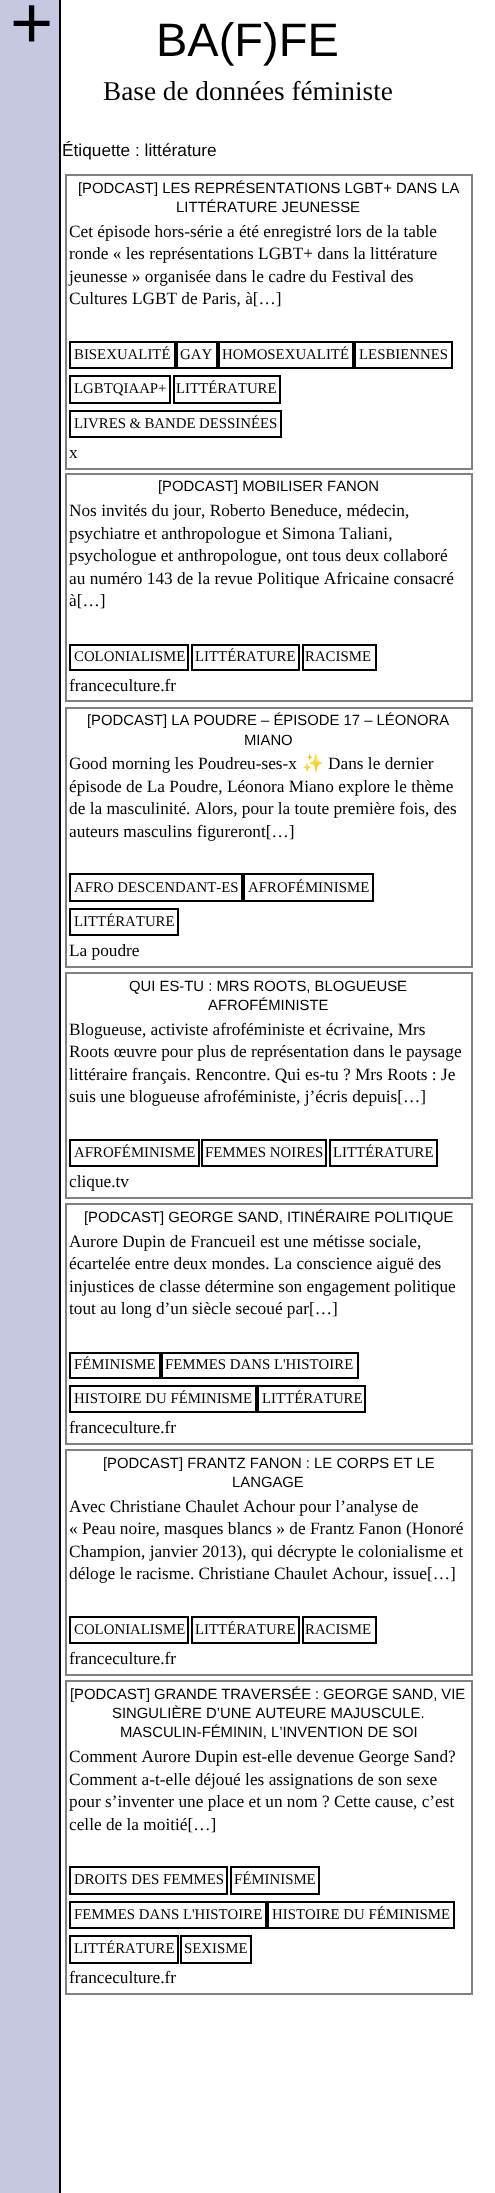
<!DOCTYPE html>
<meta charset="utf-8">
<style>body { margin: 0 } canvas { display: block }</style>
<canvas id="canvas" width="495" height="2193"></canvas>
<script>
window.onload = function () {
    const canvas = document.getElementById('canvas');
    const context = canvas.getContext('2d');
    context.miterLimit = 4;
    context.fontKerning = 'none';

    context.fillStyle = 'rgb(255, 255, 255)';
    context.fillRect(0, 0, 495, 2193);
    context.fillStyle = 'rgb(197, 200, 224)';
    context.fillRect(0, 0, 59, 2193);
    context.fillStyle = 'rgb(0, 0, 0)';
    context.fillRect(59, 0, 2, 2193);
    context.strokeStyle = 'rgb(128, 128, 128)';
    context.lineWidth = 2;
    context.strokeRect(66, 175, 406, 294);
    context.strokeStyle = 'rgb(0, 0, 0)';
    context.strokeRect(70, 342, 105, 26);
    context.strokeRect(177, 342, 40, 26);
    context.strokeRect(219, 342, 134, 26);
    context.strokeRect(355, 342, 97, 26);
    context.strokeRect(70, 376, 100, 27);
    context.strokeRect(174, 376, 106, 27);
    context.strokeRect(70, 411, 211, 26);
    context.strokeStyle = 'rgb(128, 128, 128)';
    context.strokeRect(66, 474, 406, 227);
    context.strokeStyle = 'rgb(0, 0, 0)';
    context.strokeRect(70, 645, 118, 25);
    context.strokeRect(192, 645, 107, 25);
    context.strokeRect(303, 645, 73, 25);
    context.strokeStyle = 'rgb(128, 128, 128)';
    context.strokeRect(66, 708, 406, 259);
    context.strokeStyle = 'rgb(0, 0, 0)';
    context.strokeRect(70, 874, 172, 27);
    context.strokeRect(244, 874, 129, 27);
    context.strokeRect(70, 909, 108, 26);
    context.strokeStyle = 'rgb(128, 128, 128)';
    context.strokeRect(66, 973, 406, 225);
    context.strokeStyle = 'rgb(0, 0, 0)';
    context.strokeRect(70, 1140, 129, 26);
    context.strokeRect(202, 1140, 124, 26);
    context.strokeRect(330, 1140, 107, 26);
    context.strokeStyle = 'rgb(128, 128, 128)';
    context.strokeRect(66, 1204, 406, 240);
    context.strokeStyle = 'rgb(0, 0, 0)';
    context.strokeRect(70, 1353, 90, 25);
    context.strokeRect(162, 1353, 196, 25);
    context.strokeRect(70, 1386, 186, 26);
    context.strokeRect(258, 1386, 107, 26);
    context.strokeStyle = 'rgb(128, 128, 128)';
    context.strokeRect(66, 1450, 406, 225);
    context.strokeStyle = 'rgb(0, 0, 0)';
    context.strokeRect(70, 1617, 118, 26);
    context.strokeRect(192, 1617, 107, 26);
    context.strokeRect(303, 1617, 73, 26);
    context.strokeStyle = 'rgb(128, 128, 128)';
    context.strokeRect(66, 1681, 406, 313);
    context.strokeStyle = 'rgb(0, 0, 0)';
    context.strokeRect(70, 1867, 157, 27);
    context.strokeRect(231, 1867, 88, 27);
    context.strokeRect(70, 1902, 196, 26);
    context.strokeRect(268, 1902, 186, 26);
    context.strokeRect(70, 1936, 108, 27);
    context.strokeRect(181, 1936, 70, 27);
    context.font = '74px Liberation Sans';
    context.fillText('+', 10, 48);
    context.font = '47px Liberation Sans';
    context.fillText('BA(F)FE', 156, 56);
    context.font = '27.25px Liberation Serif';
    context.fillText('Base de données féministe', 103, 100);
    context.font = '17.3px Liberation Sans';
    context.fillText('Étiquette : littérature', 62, 156);
    context.font = '14.85px Liberation Sans';
    context.fillText('[PODCAST] LES REPRÉSENTATIONS LGBT+ DANS LA', 78, 193);
    context.fillText('LITTÉRATURE JEUNESSE', 176, 212);
    context.font = '17.3px Liberation Serif';
    context.fillText('Cet épisode hors-série a été enregistré lors de la table', 69, 237);
    context.fillText('ronde « les représentations LGBT+ dans la littérature', 69, 259);
    context.fillText('jeunesse » organisée dans le cadre du Festival des', 69, 282);
    context.fillText('Cultures LGBT de Paris, à[…]', 69, 304);
    context.font = '14.85px Liberation Serif';
    context.fillText('BISEXUALITÉ', 74, 359);
    context.fillText('GAY', 180, 359);
    context.fillText('HOMOSEXUALITÉ', 222, 359);
    context.fillText('LESBIENNES', 359, 359);
    context.fillText('LGBTQIAAP+', 74, 393);
    context.fillText('LITTÉRATURE', 176, 393);
    context.wordSpacing = '-0.25px';
    context.fillText('LIVRES & BANDE DESSINÉES', 74, 428);
    context.wordSpacing = '0px';
    context.font = '17.3px Liberation Serif';
    context.fillText('x', 69, 458);
    context.font = '14.85px Liberation Sans';
    context.fillText('[PODCAST] MOBILISER FANON', 158, 491);
    context.font = '17.3px Liberation Serif';
    context.fillText('Nos invités du jour, Roberto Beneduce, médecin,', 69, 516);
    context.fillText('psychiatre et anthropologue et Simona Taliani,', 69, 539);
    context.fillText('psychologue et anthropologue, ont tous deux collaboré', 69, 561);
    context.fillText('au numéro 143 de la revue Politique Africaine consacré', 69, 584);
    context.fillText('à[…]', 69, 606);
    context.font = '14.85px Liberation Serif';
    context.fillText('COLONIALISME', 74, 661);
    context.fillText('LITTÉRATURE', 195, 661);
    context.fillText('RACISME', 305, 661);
    context.font = '17.3px Liberation Serif';
    context.fillText('franceculture.fr', 69, 691);
    context.font = '14.85px Liberation Sans';
    context.fillText('[PODCAST] LA POUDRE – ÉPISODE 17 – LÉONORA', 87, 725);
    context.fillText('MIANO', 244, 745);
    context.font = '17.3px Liberation Serif';
    context.fillText('Good morning les Poudreu-ses-x', 69, 769);
    context.font = '17.3px Noto Color Emoji';
    context.fillText('✨', 302, 769);
    context.font = '17.3px Liberation Serif';
    context.fillText('Dans le dernier', 328, 769);
    context.fillText('épisode de La Poudre, Léonora Miano explore le thème', 69, 792);
    context.fillText('de la masculinité. Alors, pour la toute première fois, des', 69, 814);
    context.fillText('auteurs masculins figureront[…]', 69, 837);
    context.font = '14.85px Liberation Serif';
    context.fillText('AFRO DESCENDANT-ES', 74, 892);
    context.fillText('AFROFÉMINISME', 248, 892);
    context.fillText('LITTÉRATURE', 74, 926);
    context.font = '17.3px Liberation Serif';
    context.fillText('La poudre', 69, 956);
    context.font = '14.85px Liberation Sans';
    context.fillText('QUI ES-TU : MRS ROOTS, BLOGUEUSE', 129, 991);
    context.fillText('AFROFÉMINISTE', 208, 1010);
    context.font = '17.3px Liberation Serif';
    context.fillText('Blogueuse, activiste afroféministe et écrivaine, Mrs', 69, 1035);
    context.fillText('Roots œuvre pour plus de représentation dans le paysage', 69, 1057);
    context.fillText('littéraire français. Rencontre. Qui es-tu ? Mrs Roots : Je', 69, 1080);
    context.fillText('suis une blogueuse afroféministe, j’écris depuis[…]', 69, 1102);
    context.font = '14.85px Liberation Serif';
    context.fillText('AFROFÉMINISME', 74, 1157);
    context.fillText('FEMMES NOIRES', 205, 1157);
    context.fillText('LITTÉRATURE', 333, 1157);
    context.font = '17.3px Liberation Serif';
    context.fillText('clique.tv', 69, 1187);
    context.font = '14.85px Liberation Sans';
    context.fillText('[PODCAST] GEORGE SAND, ITINÉRAIRE POLITIQUE', 84, 1222);
    context.font = '17.3px Liberation Serif';
    context.fillText('Aurore Dupin de Francueil est une métisse sociale,', 69, 1247);
    context.fillText('écartelée entre deux mondes. La conscience aiguë des', 69, 1269);
    context.fillText('injustices de classe détermine son engagement politique', 69, 1292);
    context.fillText('tout au long d’un siècle secoué par[…]', 69, 1314);
    context.font = '14.85px Liberation Serif';
    context.fillText('FÉMINISME', 74, 1369);
    context.fillText('FEMMES DANS L\'HISTOIRE', 165, 1369);
    context.fillText('HISTOIRE DU FÉMINISME', 74, 1403);
    context.fillText('LITTÉRATURE', 262, 1403);
    context.font = '17.3px Liberation Serif';
    context.fillText('franceculture.fr', 69, 1433);
    context.font = '14.85px Liberation Sans';
    context.fillText('[PODCAST] FRANTZ FANON : LE CORPS ET LE', 103, 1468);
    context.fillText('LANGAGE', 232, 1487);
    context.font = '17.3px Liberation Serif';
    context.fillText('Avec Christiane Chaulet Achour pour l’analyse de', 69, 1512);
    context.fillText('« Peau noire, masques blancs » de Frantz Fanon (Honoré', 69, 1534);
    context.fillText('Champion, janvier 2013), qui décrypte le colonialisme et', 69, 1557);
    context.fillText('déloge le racisme. Christiane Chaulet Achour, issue[…]', 69, 1579);
    context.font = '14.85px Liberation Serif';
    context.fillText('COLONIALISME', 74, 1634);
    context.fillText('LITTÉRATURE', 195, 1634);
    context.fillText('RACISME', 305, 1634);
    context.font = '17.3px Liberation Serif';
    context.fillText('franceculture.fr', 69, 1664);
    context.wordSpacing = '-0.25px';
    context.font = '14.85px Liberation Sans';
    context.fillText('[PODCAST] GRANDE TRAVERSÉE : GEORGE SAND, VIE', 70, 1699);
    context.wordSpacing = '0px';
    context.fillText('SINGULIÈRE D’UNE AUTEURE MAJUSCULE.', 112, 1718);
    context.fillText('MASCULIN-FÉMININ, L’INVENTION DE SOI', 120, 1737);
    context.font = '17.3px Liberation Serif';
    context.fillText('Comment Aurore Dupin est-elle devenue George Sand?', 69, 1762);
    context.fillText('Comment a-t-elle déjoué les assignations de son sexe', 69, 1785);
    context.fillText('pour s’inventer une place et un nom ? Cette cause, c’est', 69, 1807);
    context.fillText('celle de la moitié[…]', 69, 1830);
    context.font = '14.85px Liberation Serif';
    context.fillText('DROITS DES FEMMES', 74, 1884);
    context.fillText('FÉMINISME', 234, 1884);
    context.fillText('FEMMES DANS L\'HISTOIRE', 74, 1919);
    context.fillText('HISTOIRE DU FÉMINISME', 272, 1919);
    context.fillText('LITTÉRATURE', 74, 1953);
    context.fillText('SEXISME', 184, 1953);
    context.font = '17.3px Liberation Serif';
    context.fillText('franceculture.fr', 69, 1983);
};
</script>
